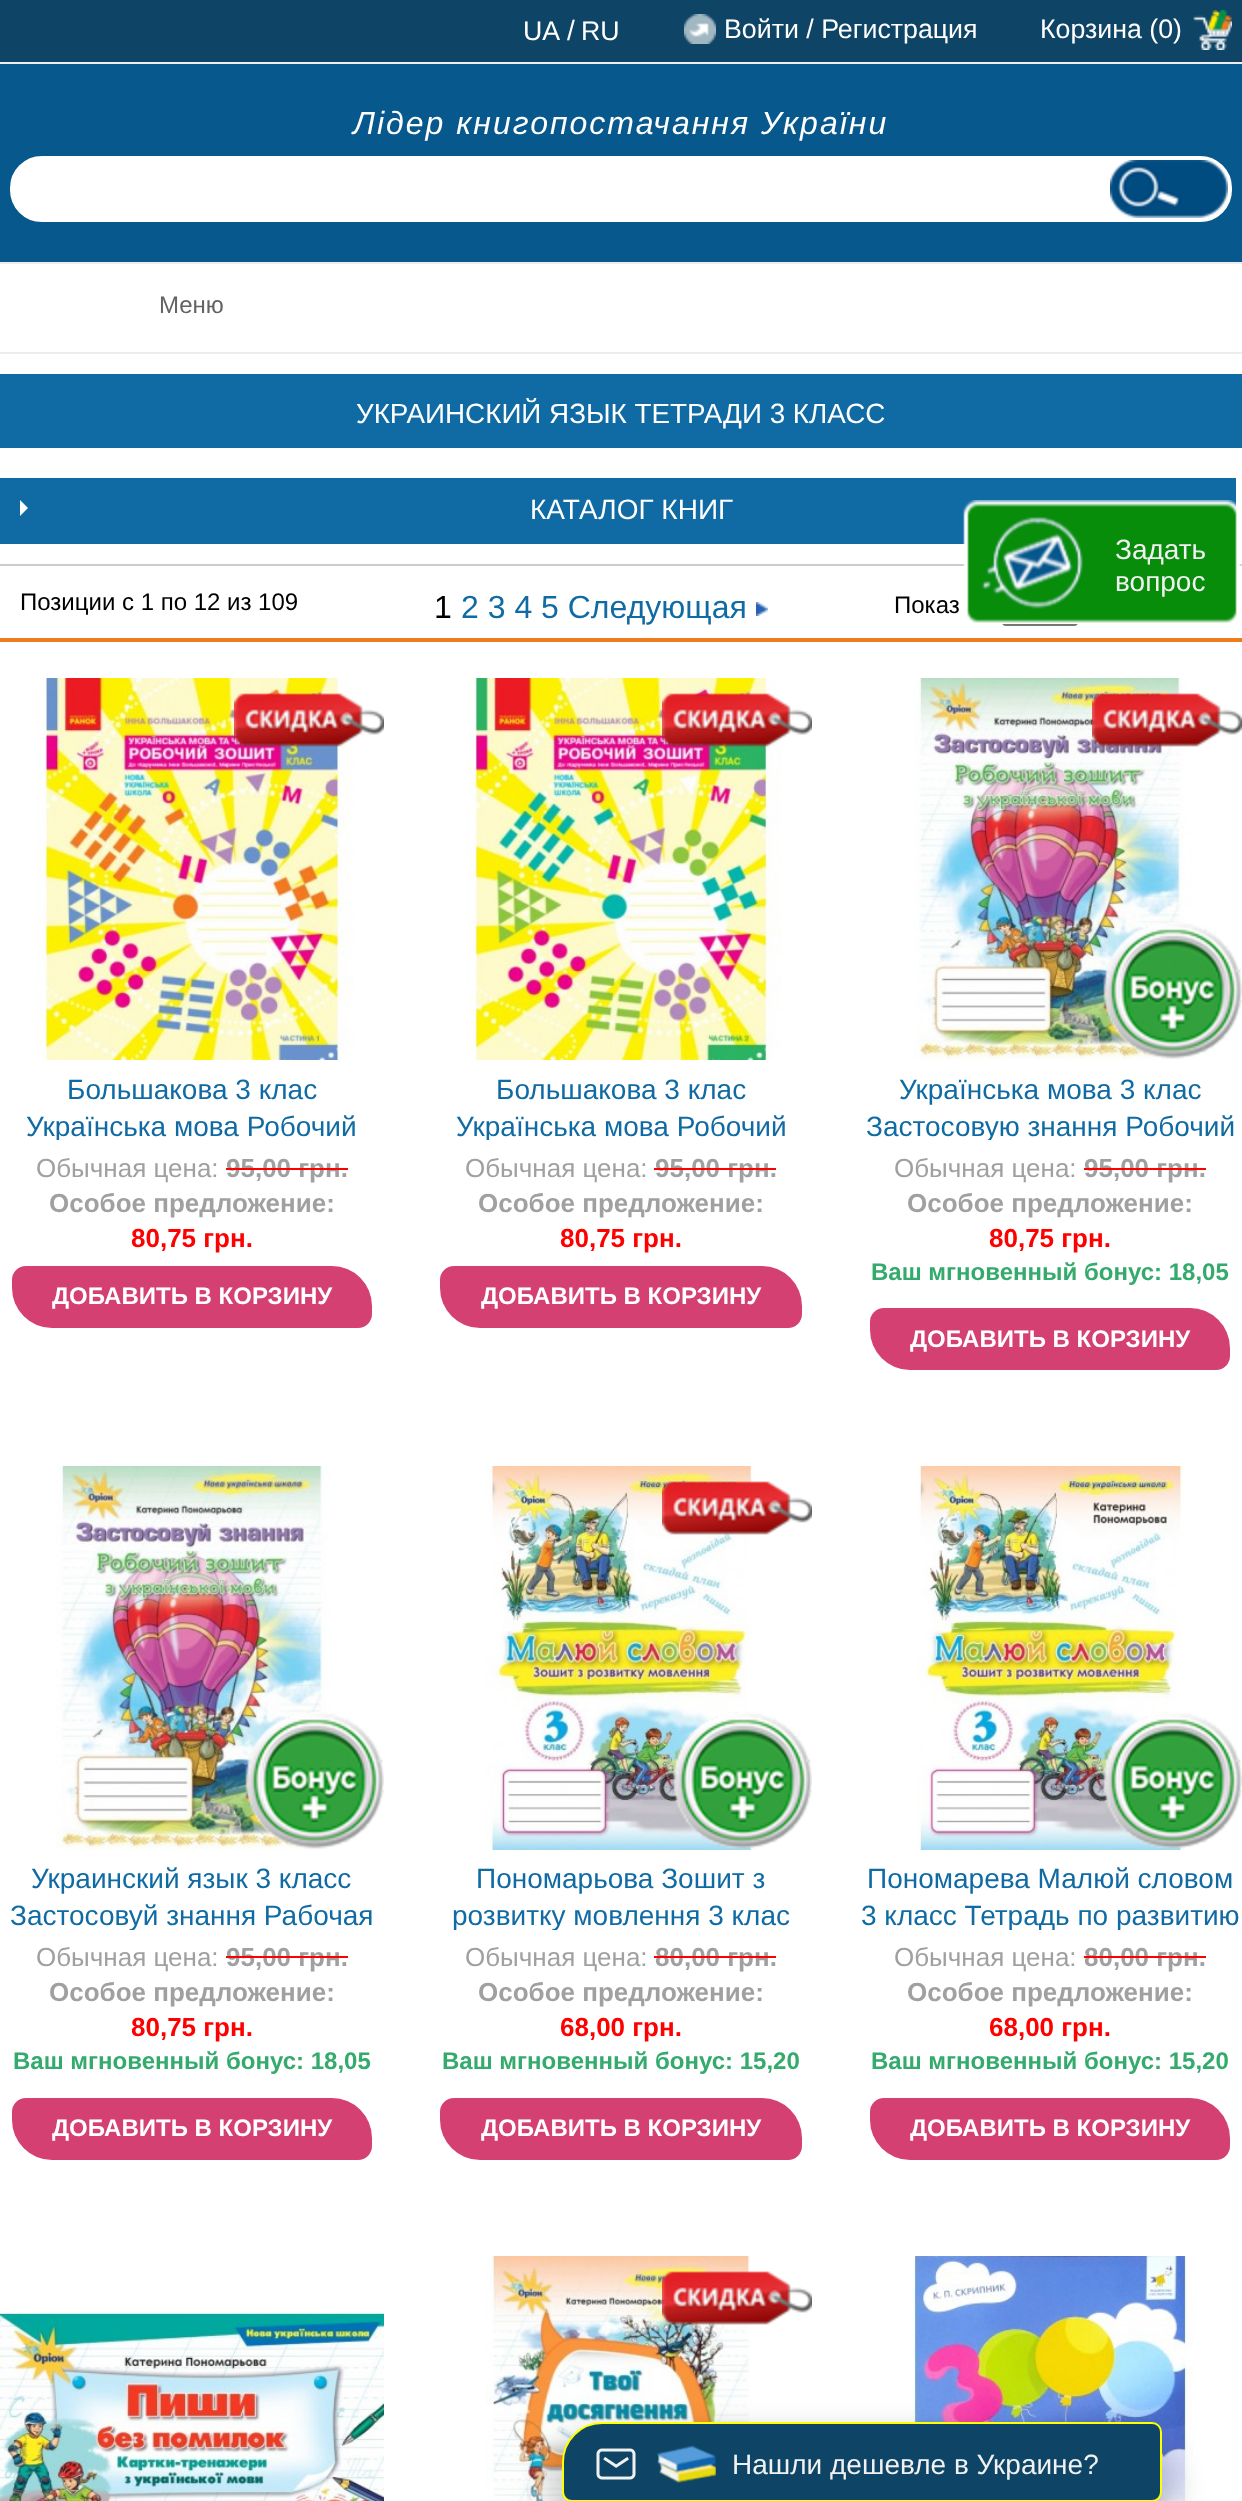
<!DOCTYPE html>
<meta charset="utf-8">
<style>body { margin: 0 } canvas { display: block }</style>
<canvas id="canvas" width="1242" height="2501"></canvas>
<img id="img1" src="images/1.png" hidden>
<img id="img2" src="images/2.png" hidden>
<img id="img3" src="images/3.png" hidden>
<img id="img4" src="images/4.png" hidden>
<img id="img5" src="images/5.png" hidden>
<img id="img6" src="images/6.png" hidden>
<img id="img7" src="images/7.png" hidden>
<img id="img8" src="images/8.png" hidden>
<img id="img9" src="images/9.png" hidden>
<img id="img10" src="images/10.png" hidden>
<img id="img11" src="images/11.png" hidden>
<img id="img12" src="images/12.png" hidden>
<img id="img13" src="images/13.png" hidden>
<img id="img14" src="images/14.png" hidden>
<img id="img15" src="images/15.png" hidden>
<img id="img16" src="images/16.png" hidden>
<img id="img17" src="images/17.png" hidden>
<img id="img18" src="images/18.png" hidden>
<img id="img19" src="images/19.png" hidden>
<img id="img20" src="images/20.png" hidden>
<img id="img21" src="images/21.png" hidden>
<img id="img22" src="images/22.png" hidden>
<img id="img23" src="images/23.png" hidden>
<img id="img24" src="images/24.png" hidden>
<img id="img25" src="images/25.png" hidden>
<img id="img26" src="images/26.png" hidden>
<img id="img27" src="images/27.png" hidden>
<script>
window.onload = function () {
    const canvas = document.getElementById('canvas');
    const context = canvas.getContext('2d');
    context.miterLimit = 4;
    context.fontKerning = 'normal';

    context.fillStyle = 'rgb(255, 255, 255)';
    context.fillRect(0, 0, 1242, 2501);
    context.fillStyle = 'rgb(14, 68, 102)';
    context.fillRect(0, 0, 1242, 62);
    context.fillStyle = 'rgb(238, 238, 238)';
    context.fillRect(0, 62, 1242, 2);
    context.drawImage(document.getElementById('img1'), 684, 14, 32, 30);
    context.drawImage(document.getElementById('img2'), 1193, 10, 39, 40);
    context.fillStyle = 'rgb(7, 88, 141)';
    context.fillRect(0, 64, 1242, 198);
    context.fillStyle = 'rgb(255, 255, 255)';
    context.beginPath();
    context.roundRect(11, 157, 1220, 64, 31);
    context.fill();
    context.strokeStyle = 'rgb(255, 255, 255)';
    context.lineWidth = 2;
    context.stroke();
    context.drawImage(document.getElementById('img3'), 1110, 160, 118, 58);
    context.fillStyle = 'rgb(237, 237, 237)';
    context.fillRect(0, 262, 1242, 2);
    context.fillRect(0, 352, 1242, 2);
    context.fillStyle = 'rgb(16, 107, 164)';
    context.fillRect(0, 374, 1242, 74);
    context.fillRect(0, 478, 1236, 66);
    context.fillStyle = 'rgb(255, 255, 255)';
    context.beginPath();
    context.moveTo(20, 516);
    context.lineTo(20, 500);
    context.lineTo(28, 508);
    context.closePath();
    context.fill();
    context.fillStyle = 'rgb(204, 204, 204)';
    context.fillRect(0, 564, 1242, 2);
    context.fillStyle = 'rgb(237, 124, 30)';
    context.fillRect(0, 638, 1242, 4);
    context.drawImage(document.getElementById('img4'), 756, 602, 12, 14);
    context.beginPath();
    context.roundRect(1003, 587, 74, 38, 3);
    context.strokeStyle = 'rgb(118, 118, 118)';
    context.stroke();
    context.drawImage(document.getElementById('img5'), 37, 678, 317, 382);
    context.drawImage(document.getElementById('img6'), 234, 691, 150, 56);
    context.fillStyle = 'rgb(212, 64, 114)';
    context.beginPath();
    context.roundRect(12, 1266, 360, 62, [14, 40, 14, 40]);
    context.fill();
    context.drawImage(document.getElementById('img7'), 467, 678, 315, 382);
    context.drawImage(document.getElementById('img8'), 662, 691, 150, 56);
    context.beginPath();
    context.roundRect(440, 1266, 362, 62, [14, 40, 14, 40]);
    context.fill();
    context.drawImage(document.getElementById('img9'), 914, 678, 279, 382);
    context.drawImage(document.getElementById('img10'), 1092, 692, 150, 55);
    context.drawImage(document.getElementById('img11'), 1103, 921, 139, 138);
    context.beginPath();
    context.roundRect(870, 1308, 360, 62, [14, 40, 14, 40]);
    context.fill();
    context.drawImage(document.getElementById('img12'), 56, 1466, 279, 384);
    context.drawImage(document.getElementById('img13'), 245, 1712, 139, 137);
    context.beginPath();
    context.roundRect(12, 2098, 360, 62, [14, 40, 14, 40]);
    context.fill();
    context.drawImage(document.getElementById('img14'), 486, 1466, 268, 384);
    context.drawImage(document.getElementById('img15'), 662, 1480, 150, 55);
    context.drawImage(document.getElementById('img16'), 673, 1712, 139, 137);
    context.beginPath();
    context.roundRect(440, 2098, 362, 62, [14, 40, 14, 40]);
    context.fill();
    context.drawImage(document.getElementById('img17'), 917, 1466, 267, 384);
    context.drawImage(document.getElementById('img18'), 1103, 1712, 139, 137);
    context.beginPath();
    context.roundRect(870, 2098, 360, 62, [14, 40, 14, 40]);
    context.fill();
    context.drawImage(document.getElementById('img19'), 0, 2311, 384, 190);
    context.drawImage(document.getElementById('img20'), 300, 2499, 31, 2);
    context.drawImage(document.getElementById('img21'), 486, 2256, 265, 245);
    context.drawImage(document.getElementById('img22'), 662, 2270, 150, 55);
    context.drawImage(document.getElementById('img23'), 913, 2256, 281, 245);
    context.drawImage(document.getElementById('img24'), 1160, 2499, 24, 2);
    context.drawImage(document.getElementById('img25'), 963, 500, 278, 124);
    context.fillStyle = 'rgba(0, 0, 0, 0.17)';
    context.filter = 'blur(14px)';
    context.beginPath();
    context.roundRect(546, 2430, 632, 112, 56);
    context.fill();
    context.filter = 'none';
    context.fillStyle = 'rgb(14, 68, 102)';
    context.beginPath();
    context.moveTo(602, 2423);
    context.lineTo(1152, 2423);
    context.bezierCurveTo(1157, 2423, 1161, 2427, 1161, 2432);
    context.lineTo(1161, 2492);
    context.bezierCurveTo(1161, 2497, 1157, 2501, 1152, 2501);
    context.lineTo(572, 2501);
    context.bezierCurveTo(567, 2501, 563, 2497, 563, 2492);
    context.lineTo(563, 2462);
    context.bezierCurveTo(563, 2440.5, 580.5, 2423, 602, 2423);
    context.closePath();
    context.fill();
    context.strokeStyle = 'rgb(255, 255, 0)';
    context.stroke();
    context.drawImage(document.getElementById('img26'), 596, 2448, 40, 32);
    context.drawImage(document.getElementById('img27'), 656, 2445, 60, 38);
    context.font = '26.75px Liberation Sans';
    context.fillStyle = 'rgb(255, 255, 255)';
    context.fillText('UA', 523, 40);
    context.font = '28px Liberation Sans';
    context.fillText('/', 567, 40);
    context.font = '26.75px Liberation Sans';
    context.fillText('RU', 581, 40);
    context.fillText('Войти / Регистрация', 724, 38);
    context.fillText('Корзина (0)', 1040, 38);
    context.letterSpacing = '2px';
    context.font = 'italic 32px Liberation Sans';
    context.fillText('Лідер книгопостачання України', 353, 134);
    context.letterSpacing = '0px';
    context.font = '24px Liberation Sans';
    context.fillStyle = 'rgb(99, 99, 99)';
    context.fillText('Меню', 159, 313);
    context.font = '27.8px Liberation Sans';
    context.fillStyle = 'rgb(255, 255, 255)';
    context.fillText('УКРАИНСКИЙ ЯЗЫК ТЕТРАДИ 3 КЛАСС', 356, 423);
    context.font = '28px Liberation Sans';
    context.fillText('КАТАЛОГ КНИГ', 530, 519);
    context.font = '24px Liberation Sans';
    context.fillStyle = 'rgb(0, 0, 0)';
    context.fillText('Позиции с 1 по 12 из 109', 20, 610);
    context.font = '32px Liberation Sans';
    context.fillText('1', 434, 618);
    context.fillStyle = 'rgb(16, 107, 164)';
    context.fillText('2 3 4 5 Следующая', 461, 618);
    context.font = '24px Liberation Sans';
    context.fillStyle = 'rgb(0, 0, 0)';
    context.fillText('Показ', 894, 613);
    context.font = '28px Liberation Sans';
    context.fillStyle = 'rgb(16, 107, 164)';
    context.fillText('Большакова 3 клас', 67, 1099);
    context.save();
    context.beginPath();
    context.rect(0, 1070, 384, 70);
    context.clip();
    context.fillText('Українська мова Робочий', 26, 1136);
    context.restore();
    context.font = '26px Liberation Sans';
    context.fillStyle = 'rgb(160, 160, 160)';
    context.fillText('Обычная цена:', 36, 1177);
    context.font = 'bold 26px Liberation Sans';
    context.fillText('95,00 грн.', 226, 1177);
    context.fillStyle = 'rgb(255, 0, 0)';
    context.fillRect(226, 1168, 122, 2);
    context.fillStyle = 'rgb(160, 160, 160)';
    context.fillText('Особое предложение:', 49, 1212);
    context.fillStyle = 'rgb(255, 0, 0)';
    context.fillText('80,75 грн.', 131, 1247);
    context.font = 'bold 24px Liberation Sans';
    context.fillStyle = 'rgb(255, 255, 255)';
    context.fillText('ДОБАВИТЬ В КОРЗИНУ', 52, 1304);
    context.font = '28px Liberation Sans';
    context.fillStyle = 'rgb(16, 107, 164)';
    context.fillText('Большакова 3 клас', 496, 1099);
    context.save();
    context.beginPath();
    context.rect(430, 1070, 382, 70);
    context.clip();
    context.fillText('Українська мова Робочий', 456, 1136);
    context.restore();
    context.font = '26px Liberation Sans';
    context.fillStyle = 'rgb(160, 160, 160)';
    context.fillText('Обычная цена:', 465, 1177);
    context.font = 'bold 26px Liberation Sans';
    context.fillText('95,00 грн.', 655, 1177);
    context.fillStyle = 'rgb(255, 0, 0)';
    context.fillRect(654, 1168, 122, 2);
    context.fillStyle = 'rgb(160, 160, 160)';
    context.fillText('Особое предложение:', 478, 1212);
    context.fillStyle = 'rgb(255, 0, 0)';
    context.fillText('80,75 грн.', 560, 1247);
    context.font = 'bold 24px Liberation Sans';
    context.fillStyle = 'rgb(255, 255, 255)';
    context.fillText('ДОБАВИТЬ В КОРЗИНУ', 481, 1304);
    context.font = '28px Liberation Sans';
    context.fillStyle = 'rgb(16, 107, 164)';
    context.fillText('Українська мова 3 клас', 899, 1099);
    context.save();
    context.beginPath();
    context.rect(858, 1070, 384, 70);
    context.clip();
    context.fillText('Застосовую знання Робочий', 866, 1136);
    context.restore();
    context.font = '26px Liberation Sans';
    context.fillStyle = 'rgb(160, 160, 160)';
    context.fillText('Обычная цена:', 894, 1177);
    context.font = 'bold 26px Liberation Sans';
    context.fillText('95,00 грн.', 1084, 1177);
    context.fillStyle = 'rgb(255, 0, 0)';
    context.fillRect(1084, 1168, 122, 2);
    context.fillStyle = 'rgb(160, 160, 160)';
    context.fillText('Особое предложение:', 907, 1212);
    context.fillStyle = 'rgb(255, 0, 0)';
    context.fillText('80,75 грн.', 989, 1247);
    context.font = 'bold 24px Liberation Sans';
    context.fillStyle = 'rgb(52, 170, 109)';
    context.fillText('Ваш мгновенный бонус: 18,05', 871, 1280);
    context.fillStyle = 'rgb(255, 255, 255)';
    context.fillText('ДОБАВИТЬ В КОРЗИНУ', 910, 1347);
    context.font = '28px Liberation Sans';
    context.fillStyle = 'rgb(16, 107, 164)';
    context.fillText('Украинский язык 3 класс', 31, 1888);
    context.save();
    context.beginPath();
    context.rect(0, 1860, 384, 70);
    context.clip();
    context.fillText('Застосовуй знання Рабочая', 10, 1925);
    context.restore();
    context.font = '26px Liberation Sans';
    context.fillStyle = 'rgb(160, 160, 160)';
    context.fillText('Обычная цена:', 36, 1966);
    context.font = 'bold 26px Liberation Sans';
    context.fillText('95,00 грн.', 226, 1966);
    context.fillStyle = 'rgb(255, 0, 0)';
    context.fillRect(226, 1956, 122, 2);
    context.fillStyle = 'rgb(160, 160, 160)';
    context.fillText('Особое предложение:', 49, 2001);
    context.fillStyle = 'rgb(255, 0, 0)';
    context.fillText('80,75 грн.', 131, 2036);
    context.font = 'bold 24px Liberation Sans';
    context.fillStyle = 'rgb(52, 170, 109)';
    context.fillText('Ваш мгновенный бонус: 18,05', 13, 2069);
    context.fillStyle = 'rgb(255, 255, 255)';
    context.fillText('ДОБАВИТЬ В КОРЗИНУ', 52, 2136);
    context.font = '28px Liberation Sans';
    context.fillStyle = 'rgb(16, 107, 164)';
    context.fillText('Пономарьова Зошит з', 476, 1888);
    context.save();
    context.beginPath();
    context.rect(430, 1860, 382, 70);
    context.clip();
    context.fillText('розвитку мовлення 3 клас', 452, 1925);
    context.restore();
    context.font = '26px Liberation Sans';
    context.fillStyle = 'rgb(160, 160, 160)';
    context.fillText('Обычная цена:', 465, 1966);
    context.font = 'bold 26px Liberation Sans';
    context.fillText('80,00 грн.', 655, 1966);
    context.fillStyle = 'rgb(255, 0, 0)';
    context.fillRect(654, 1956, 122, 2);
    context.fillStyle = 'rgb(160, 160, 160)';
    context.fillText('Особое предложение:', 478, 2001);
    context.fillStyle = 'rgb(255, 0, 0)';
    context.fillText('68,00 грн.', 560, 2036);
    context.font = 'bold 24px Liberation Sans';
    context.fillStyle = 'rgb(52, 170, 109)';
    context.fillText('Ваш мгновенный бонус: 15,20', 442, 2069);
    context.fillStyle = 'rgb(255, 255, 255)';
    context.fillText('ДОБАВИТЬ В КОРЗИНУ', 481, 2136);
    context.font = '28px Liberation Sans';
    context.fillStyle = 'rgb(16, 107, 164)';
    context.fillText('Пономарева Малюй словом', 867, 1888);
    context.save();
    context.beginPath();
    context.rect(858, 1860, 384, 70);
    context.clip();
    context.fillText('3 класс Тетрадь по развитию', 861, 1925);
    context.restore();
    context.font = '26px Liberation Sans';
    context.fillStyle = 'rgb(160, 160, 160)';
    context.fillText('Обычная цена:', 894, 1966);
    context.font = 'bold 26px Liberation Sans';
    context.fillText('80,00 грн.', 1084, 1966);
    context.fillStyle = 'rgb(255, 0, 0)';
    context.fillRect(1084, 1956, 122, 2);
    context.fillStyle = 'rgb(160, 160, 160)';
    context.fillText('Особое предложение:', 907, 2001);
    context.fillStyle = 'rgb(255, 0, 0)';
    context.fillText('68,00 грн.', 989, 2036);
    context.font = 'bold 24px Liberation Sans';
    context.fillStyle = 'rgb(52, 170, 109)';
    context.fillText('Ваш мгновенный бонус: 15,20', 871, 2069);
    context.fillStyle = 'rgb(255, 255, 255)';
    context.fillText('ДОБАВИТЬ В КОРЗИНУ', 910, 2136);
    context.font = '28px Liberation Sans';
    context.fillStyle = 'rgb(240, 241, 241)';
    context.fillText('Задать', 1115, 559);
    context.fillText('вопрос', 1115, 591);
    context.fillText('Нашли дешевле в Украине?', 732, 2474);
};
</script>
